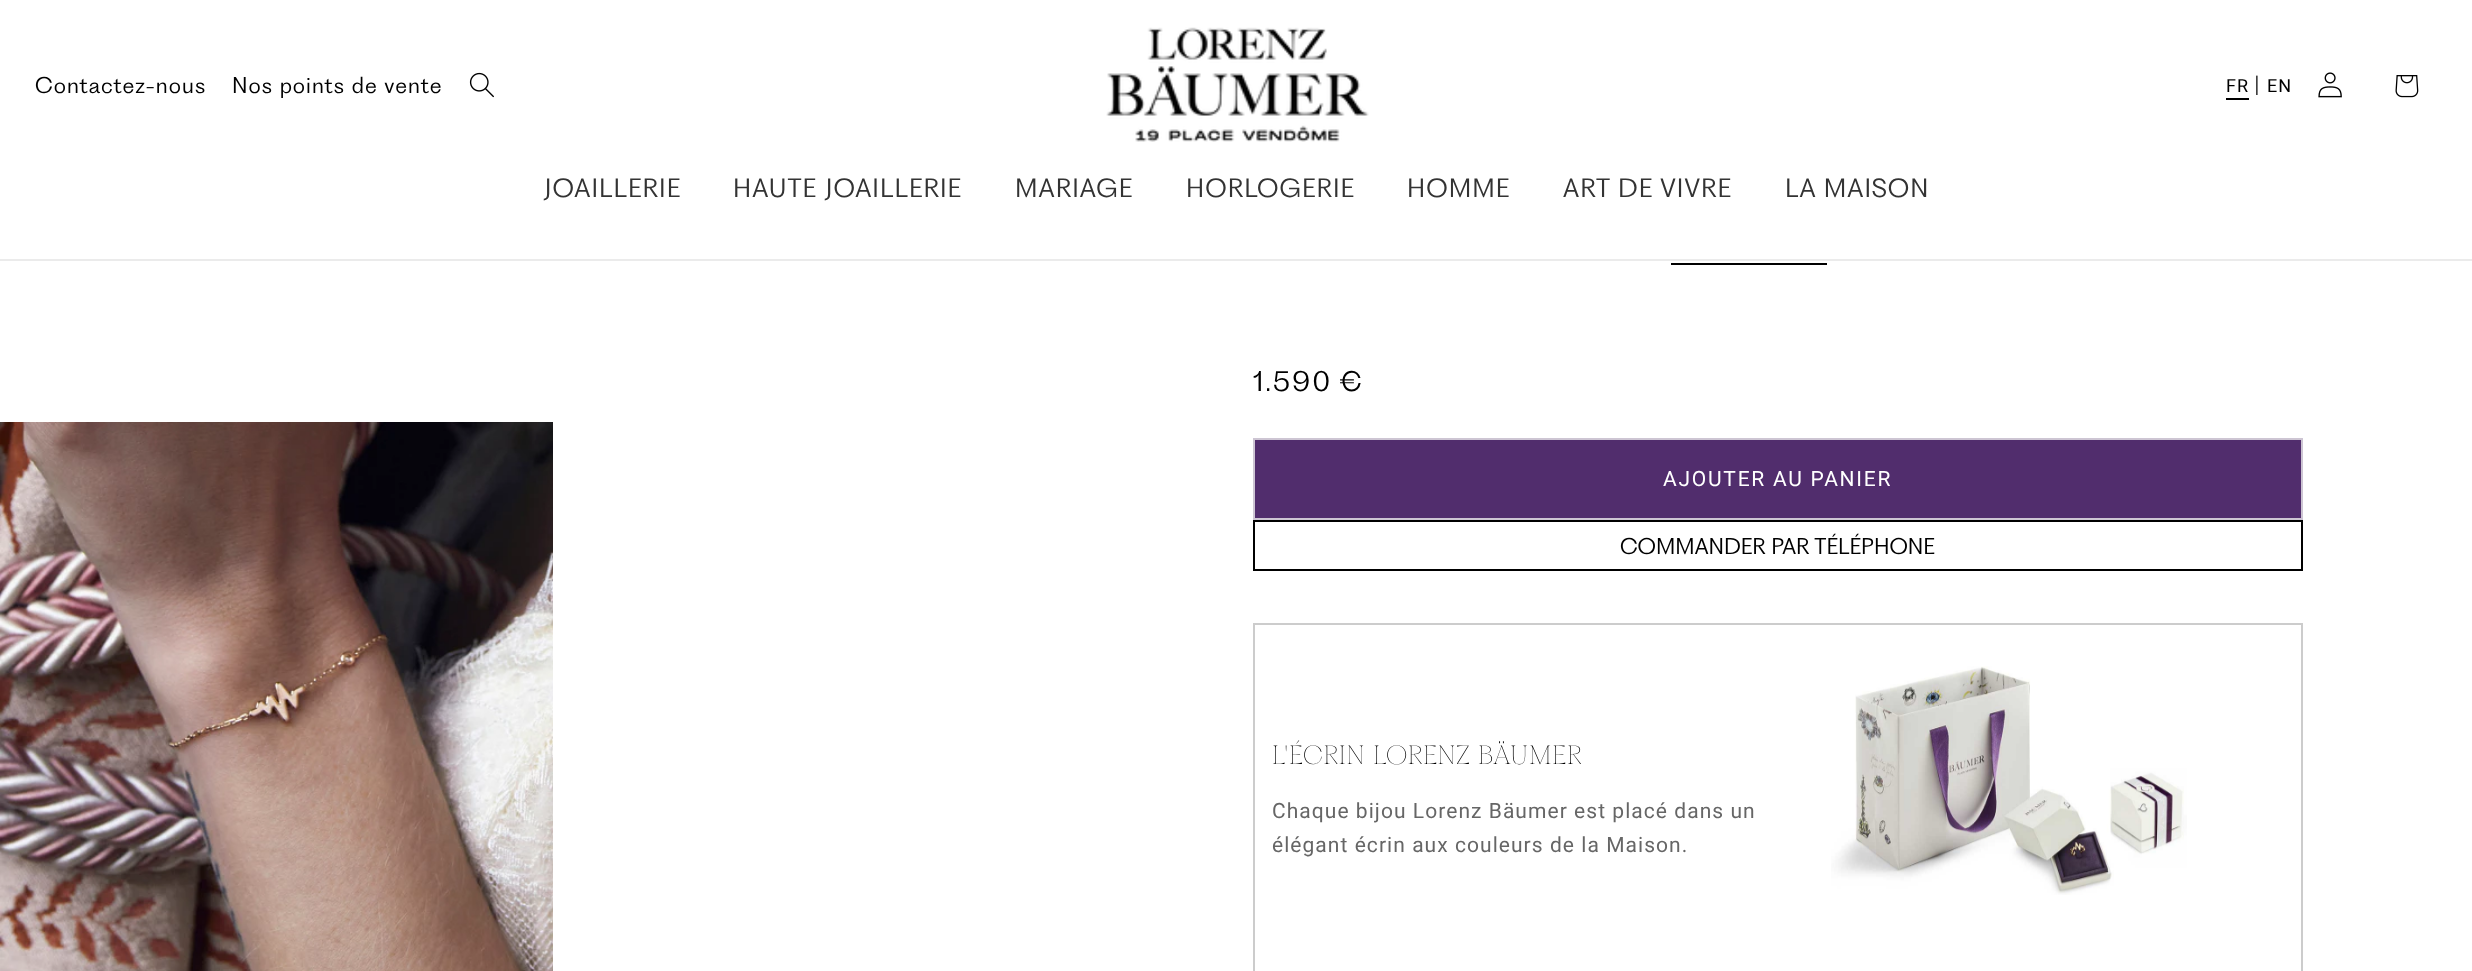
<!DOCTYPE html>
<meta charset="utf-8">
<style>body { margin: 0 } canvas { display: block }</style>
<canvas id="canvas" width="2472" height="971"></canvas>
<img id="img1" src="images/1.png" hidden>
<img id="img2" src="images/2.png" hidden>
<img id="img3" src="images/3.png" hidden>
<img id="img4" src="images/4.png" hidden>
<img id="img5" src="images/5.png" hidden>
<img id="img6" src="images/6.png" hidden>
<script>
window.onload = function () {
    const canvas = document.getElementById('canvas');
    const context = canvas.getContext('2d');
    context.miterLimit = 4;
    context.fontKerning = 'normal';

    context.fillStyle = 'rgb(255, 255, 255)';
    context.fillRect(0, 0, 2472, 971);
    context.fillStyle = 'rgb(235, 235, 235)';
    context.fillRect(0, 259, 2472, 2);
    context.drawImage(document.getElementById('img1'), 469, 72, 25, 26);
    context.drawImage(document.getElementById('img2'), 1106, 27, 263, 115);
    context.fillStyle = 'rgb(0, 0, 0)';
    context.fillRect(2226, 98, 23, 2);
    context.drawImage(document.getElementById('img3'), 2318, 72, 24, 26);
    context.drawImage(document.getElementById('img4'), 2395, 75, 24, 23);
    context.drawImage(document.getElementById('img5'), 0, 422, 553, 549);
    context.fillRect(1671, 263, 156, 2);
    context.fillStyle = 'rgb(81, 45, 109)';
    context.fillRect(1255, 440, 1046, 78);
    context.strokeStyle = 'rgb(205, 197, 211)';
    context.lineWidth = 2;
    context.strokeRect(1254, 439, 1048, 80);
    context.strokeStyle = 'rgb(0, 0, 0)';
    context.strokeRect(1254, 521, 1048, 49);
    context.strokeStyle = 'rgb(204, 204, 204)';
    context.strokeRect(1254, 624, 1048, 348);
    context.drawImage(document.getElementById('img6'), 1831, 666, 356, 229);
    context.letterSpacing = '1.05px';
    context.font = '300 21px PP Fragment';
    context.fillStyle = 'rgb(0, 0, 0)';
    context.fillText('Contactez-nous', 35, 93);
    context.fillText('Nos points de vente', 232, 93);
    context.letterSpacing = '1px';
    context.font = '18px Roboto';
    context.fillText('FR', 2226, 92);
    context.font = '23px Roboto';
    context.fillStyle = 'rgb(64, 64, 64)';
    context.fillText('|', 2254, 92);
    context.font = '18px Roboto';
    context.fillStyle = 'rgb(0, 0, 0)';
    context.fillText('EN', 2267, 92);
    context.letterSpacing = '1.05px';
    context.font = '300 24.5px PP Fragment';
    context.fillStyle = 'rgb(51, 51, 51)';
    context.fillText('JOAILLERIE', 544, 197);
    context.fillText('HAUTE JOAILLERIE', 733, 197);
    context.fillText('MARIAGE', 1015, 197);
    context.fillText('HORLOGERIE', 1186, 197);
    context.fillText('HOMME', 1407, 197);
    context.fillText('ART DE VIVRE', 1563, 197);
    context.fillText('LA MAISON', 1785, 197);
    context.letterSpacing = '2.25px';
    context.font = '300 26.25px PP Fragment';
    context.fillStyle = 'rgb(0, 0, 0)';
    context.fillText('1.590 €', 1253, 391);
    context.letterSpacing = '1.75px';
    context.font = '21px Roboto';
    context.fillStyle = 'rgb(255, 255, 255)';
    context.fillText('AJOUTER AU PANIER', 1663, 486);
    context.letterSpacing = '0px';
    context.font = '300 21px PP Fragment';
    context.fillStyle = 'rgb(0, 0, 0)';
    context.fillText('COMMANDER PAR TÉLÉPHONE', 1620, 554);
    context.letterSpacing = '1.05px';
    context.font = '100 24.5px PP Fragment';
    context.fillText('L\'ÉCRIN LORENZ BÄUMER', 1272, 764);
    context.font = '21px Roboto';
    context.fillStyle = 'rgb(102, 102, 102)';
    context.fillText('Chaque bijou Lorenz Bäumer est placé dans un', 1272, 818);
    context.fillText('élégant écrin aux couleurs de la Maison.', 1272, 852);
};
</script>
